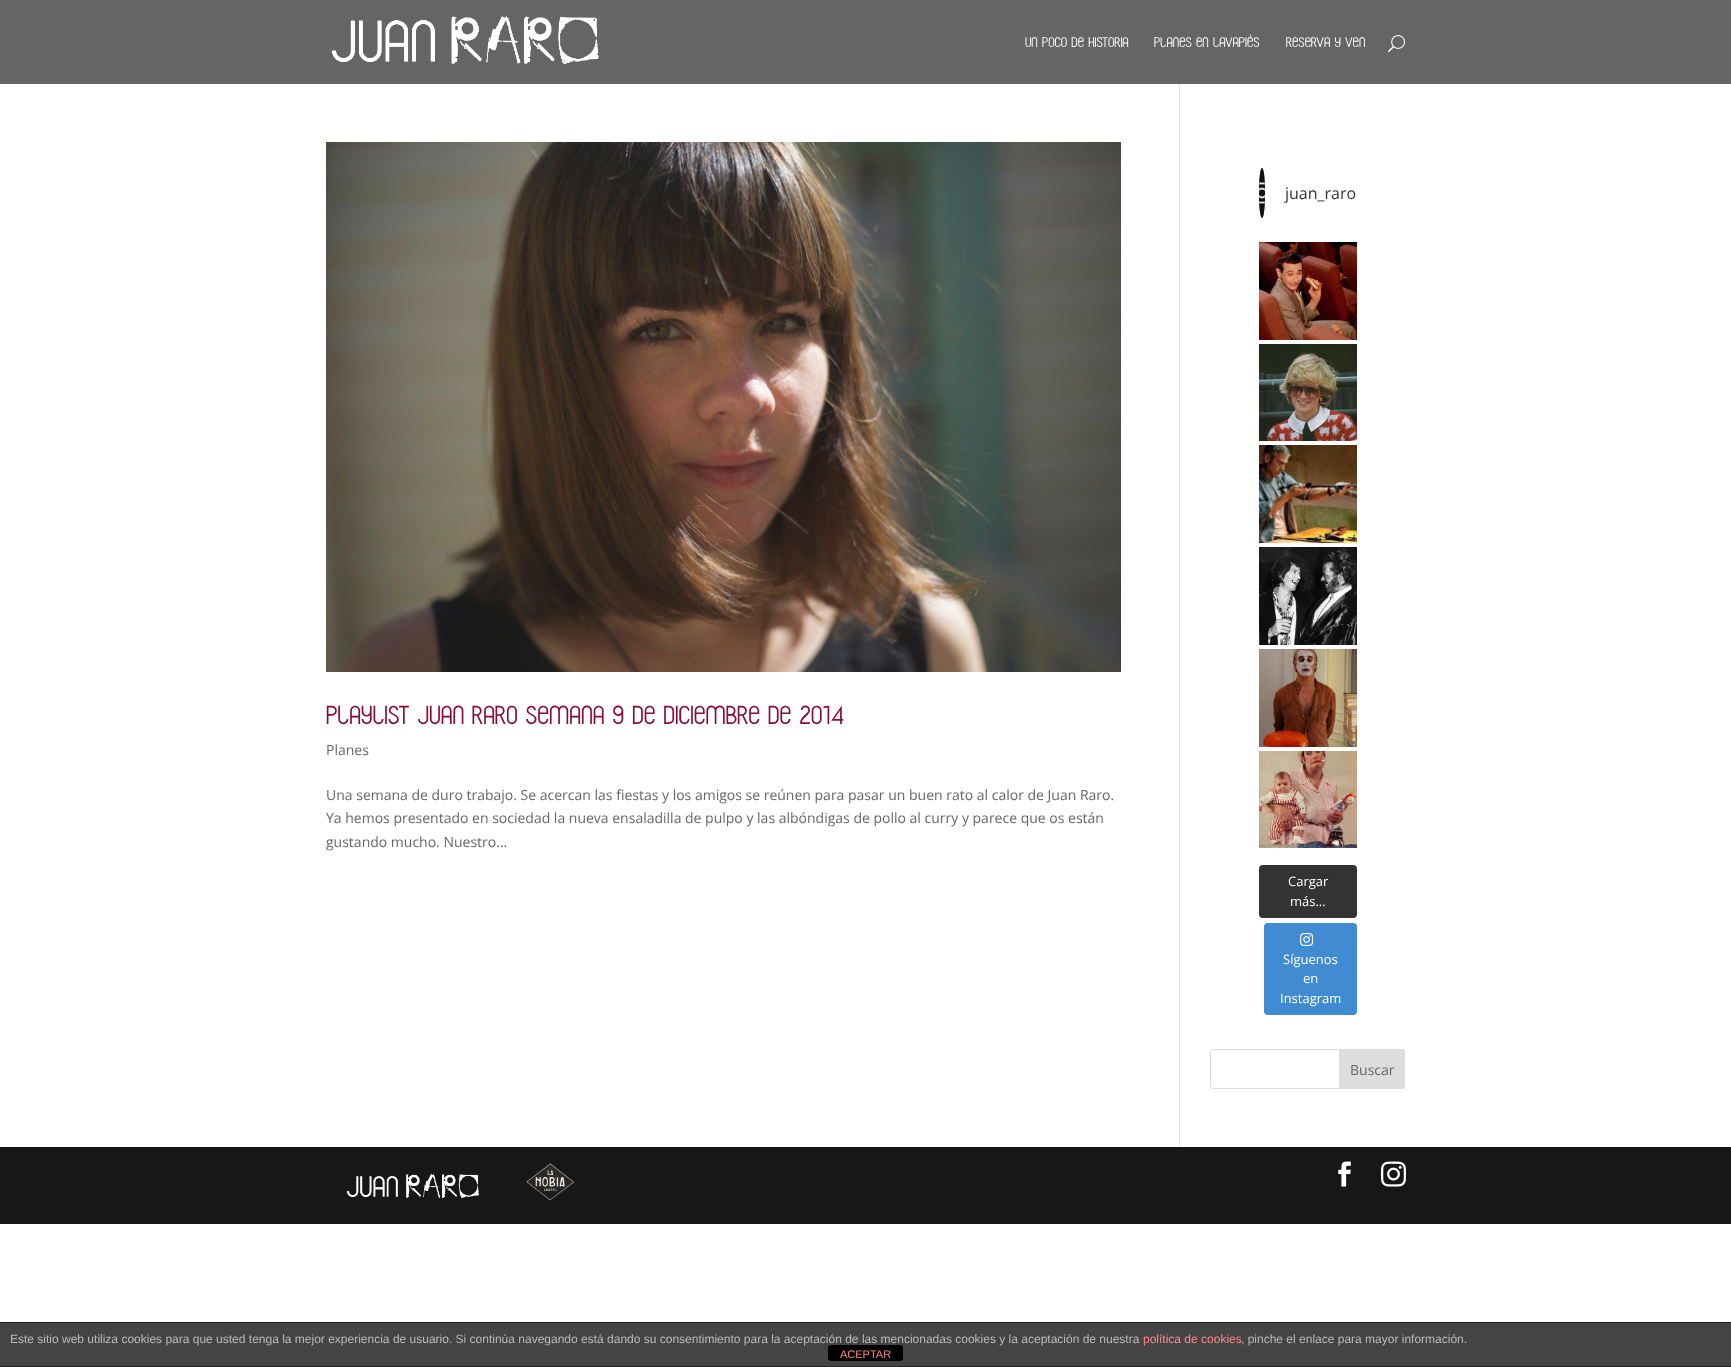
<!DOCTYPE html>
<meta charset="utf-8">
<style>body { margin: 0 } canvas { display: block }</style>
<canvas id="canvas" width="1731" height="1367"></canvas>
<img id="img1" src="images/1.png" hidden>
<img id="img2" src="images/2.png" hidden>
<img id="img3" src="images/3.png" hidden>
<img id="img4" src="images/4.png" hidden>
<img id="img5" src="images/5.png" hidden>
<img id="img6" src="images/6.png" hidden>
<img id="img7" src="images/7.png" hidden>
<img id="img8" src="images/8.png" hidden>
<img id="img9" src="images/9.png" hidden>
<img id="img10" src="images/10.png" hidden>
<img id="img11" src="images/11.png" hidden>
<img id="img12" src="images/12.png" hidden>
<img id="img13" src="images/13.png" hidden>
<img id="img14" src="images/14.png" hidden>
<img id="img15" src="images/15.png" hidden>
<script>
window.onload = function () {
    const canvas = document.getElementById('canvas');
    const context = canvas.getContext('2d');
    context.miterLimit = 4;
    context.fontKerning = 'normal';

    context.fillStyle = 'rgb(255, 255, 255)';
    context.fillRect(0, 0, 1731, 1367);
    context.fillStyle = 'rgb(101, 101, 101)';
    context.fillRect(0, 0, 1731, 84);
    context.drawImage(document.getElementById('img1'), 332, 16, 268, 50);
    context.drawImage(document.getElementById('img2'), 1388, 35, 17, 18);
    context.fillStyle = 'rgb(226, 226, 226)';
    context.fillRect(1179, 84, 1, 1063);
    context.drawImage(document.getElementById('img3'), 326, 142, 795, 530);
    context.fillStyle = 'rgb(51, 51, 51)';
    context.beginPath();
    context.ellipse(1262, 193, 3, 25, 0, 0, 2 * Math.PI);
    context.fill();
    context.fillStyle = 'rgba(0, 0, 0, 0.68)';
    context.beginPath();
    context.moveTo(1262, 168);
    context.bezierCurveTo(1264, 168, 1265, 179, 1265, 193);
    context.bezierCurveTo(1265, 207, 1264, 218, 1262, 218);
    context.bezierCurveTo(1260, 218, 1259, 207, 1259, 193);
    context.bezierCurveTo(1259, 179, 1260, 168, 1262, 168);
    context.closePath();
    context.fill();
    context.drawImage(document.getElementById('img4'), 1259, 182, 6, 22);
    context.drawImage(document.getElementById('img5'), 1259, 242, 98, 98);
    context.drawImage(document.getElementById('img6'), 1259, 344, 98, 97);
    context.drawImage(document.getElementById('img7'), 1259, 445, 98, 98);
    context.drawImage(document.getElementById('img8'), 1259, 547, 98, 98);
    context.drawImage(document.getElementById('img9'), 1259, 649, 98, 98);
    context.drawImage(document.getElementById('img10'), 1259, 751, 98, 97);
    context.fillStyle = 'rgb(51, 51, 51)';
    context.beginPath();
    context.roundRect(1259, 865, 98, 53, 4);
    context.fill();
    context.fillStyle = 'rgb(64, 139, 209)';
    context.beginPath();
    context.roundRect(1264, 923, 93, 92, 4);
    context.fill();
    context.drawImage(document.getElementById('img11'), 1300, 933, 13, 13);
    context.beginPath();
    context.roundRect(1210.5, 1049.5, 194, 39, 2.5);
    context.strokeStyle = 'rgb(221, 221, 221)';
    context.stroke();
    context.fillStyle = 'rgb(221, 221, 221)';
    context.beginPath();
    context.roundRect(1339.5, 1049.5, 65, 39, [0, 2.5, 2.5, 0]);
    context.fill();
    context.stroke();
    context.fillStyle = 'rgb(23, 23, 23)';
    context.fillRect(0, 1147, 1731, 77);
    context.drawImage(document.getElementById('img12'), 347, 1174, 133, 24);
    context.drawImage(document.getElementById('img13'), 526, 1163, 49, 38);
    context.drawImage(document.getElementById('img14'), 1338, 1161, 13, 26);
    context.drawImage(document.getElementById('img15'), 1381, 1161, 25, 26);
    context.fillStyle = 'rgb(68, 68, 68)';
    context.fillRect(0, 1323, 1731, 43);
    context.fillStyle = 'rgb(34, 34, 34)';
    context.fillRect(0, 1322, 1731, 1);
    context.fillRect(0, 1366, 1731, 1);
    context.fillStyle = 'rgb(0, 0, 0)';
    context.beginPath();
    context.roundRect(828, 1345, 75, 16, 3);
    context.fill();
    context.font = '14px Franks';
    context.fillStyle = 'rgb(255, 255, 255)';
    context.fillText('UN POCO DE HISTORIA', 1025, 47);
    context.fillText('PLANES EN LAVAPIÉS', 1154, 47);
    context.fillText('RESERVA Y VEN', 1286, 47);
    context.font = '26px Franks';
    context.fillStyle = 'rgb(135, 11, 51)';
    context.fillText('PLAYLIST JUAN RARO SEMANA 9 DE DICIEMBRE DE 2014', 326, 724);
    context.font = '14px Open Sans';
    context.fillStyle = 'rgb(102, 102, 102)';
    context.fillText('Planes', 326, 755);
    context.fillText('Una semana de duro trabajo. Se acercan las fiestas y los amigos se reúnen para pasar un buen rato al calor de Juan Raro.', 326, 800);
    context.fillText('Ya hemos presentado en sociedad la nueva ensaladilla de pulpo y las albóndigas de pollo al curry y parece que os están', 326, 823);
    context.fillText('gustando mucho. Nuestro...', 326, 847);
    context.font = '16px Open Sans';
    context.fillStyle = 'rgb(51, 51, 51)';
    context.fillText('juan_raro', 1285, 199);
    context.font = '13px Open Sans';
    context.fillStyle = 'rgb(255, 255, 255)';
    context.fillText('Cargar', 1288, 886);
    context.fillText('más...', 1290, 906);
    context.fillText('Síguenos', 1283, 964);
    context.fillText('en', 1303, 983);
    context.fillText('Instagram', 1280, 1003);
    context.font = '14px Open Sans';
    context.fillStyle = 'rgb(102, 102, 102)';
    context.fillText('Buscar', 1350, 1075);
    context.font = '12px Liberation Sans';
    context.fillStyle = 'rgb(187, 187, 187)';
    context.fillText('Este sitio web utiliza cookies para que usted tenga la mejor experiencia de usuario. Si continúa navegando está dando su consentimiento para la aceptación de las mencionadas cookies y la aceptación de nuestra', 10, 1343);
    context.fillStyle = 'rgb(255, 136, 136)';
    context.fillText('política de cookies', 1143, 1343);
    context.fillStyle = 'rgb(187, 187, 187)';
    context.fillText(', pinche el enlace para mayor información.', 1241, 1343);
    context.font = '11px Liberation Sans';
    context.fillStyle = 'rgb(255, 136, 136)';
    context.fillText('ACEPTAR', 840, 1358);
};
</script>
